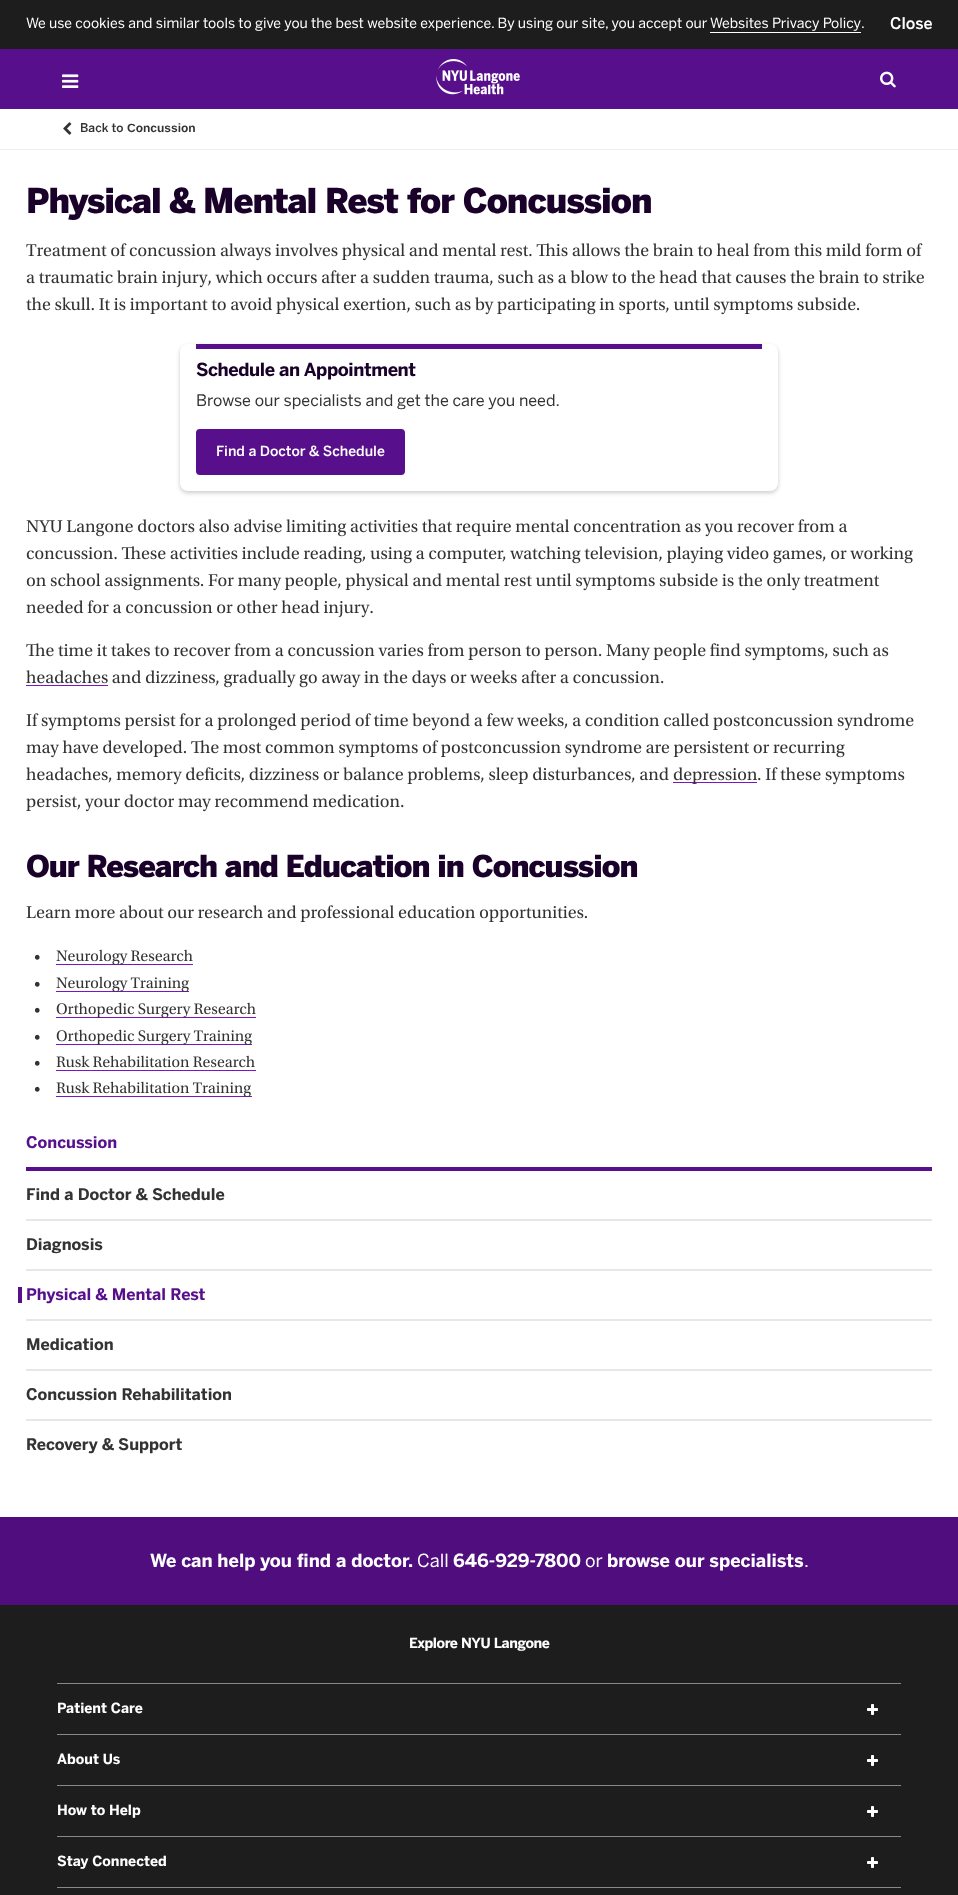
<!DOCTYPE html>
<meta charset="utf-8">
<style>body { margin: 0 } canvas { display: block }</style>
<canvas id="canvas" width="958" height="1895"></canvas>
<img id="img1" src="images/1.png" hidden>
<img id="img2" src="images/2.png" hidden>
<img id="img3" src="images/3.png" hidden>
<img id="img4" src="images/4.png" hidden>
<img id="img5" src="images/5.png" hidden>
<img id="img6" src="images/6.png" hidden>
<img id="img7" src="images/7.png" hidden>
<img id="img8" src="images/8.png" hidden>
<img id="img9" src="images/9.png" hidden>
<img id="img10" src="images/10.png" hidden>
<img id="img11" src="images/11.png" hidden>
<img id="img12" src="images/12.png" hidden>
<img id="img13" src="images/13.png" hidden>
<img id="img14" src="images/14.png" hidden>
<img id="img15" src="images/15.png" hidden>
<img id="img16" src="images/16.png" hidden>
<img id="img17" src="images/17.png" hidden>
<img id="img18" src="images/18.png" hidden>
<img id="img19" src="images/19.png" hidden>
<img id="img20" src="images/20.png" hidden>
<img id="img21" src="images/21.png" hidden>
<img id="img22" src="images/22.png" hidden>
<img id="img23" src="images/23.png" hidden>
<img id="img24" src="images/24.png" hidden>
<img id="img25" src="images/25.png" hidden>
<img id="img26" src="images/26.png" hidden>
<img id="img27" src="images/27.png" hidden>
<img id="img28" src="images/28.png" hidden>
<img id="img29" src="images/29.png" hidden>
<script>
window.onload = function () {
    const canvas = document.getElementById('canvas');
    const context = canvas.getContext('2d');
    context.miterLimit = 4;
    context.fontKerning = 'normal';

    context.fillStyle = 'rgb(255, 255, 255)';
    context.fillRect(0, 0, 958, 1895);
    context.fillStyle = 'rgb(29, 29, 29)';
    context.fillRect(0, 0, 958, 49);
    context.fillStyle = 'rgb(255, 255, 255)';
    context.fillRect(710, 32, 151, 1);
    context.fillStyle = 'rgb(88, 15, 139)';
    context.fillRect(0, 49, 958, 60);
    context.drawImage(document.getElementById('img1'), 62, 74, 17, 14);
    context.drawImage(document.getElementById('img2'), 436, 59, 84, 36);
    context.drawImage(document.getElementById('img3'), 880, 71, 16, 17);
    context.fillStyle = 'rgb(237, 237, 237)';
    context.fillRect(0, 149, 958, 1);
    context.drawImage(document.getElementById('img4'), 63, 122, 9, 13);
    context.drawImage(document.getElementById('img5'), 26, 243, 897, 18);
    context.drawImage(document.getElementById('img6'), 26, 270, 898, 18);
    context.drawImage(document.getElementById('img7'), 26, 297, 834, 18);
    context.fillStyle = 'rgba(0, 0, 0, 0.2)';
    context.filter = 'blur(2px)';
    context.beginPath();
    context.roundRect(180, 346, 598, 147, 8);
    context.fill();
    context.filter = 'none';
    context.fillStyle = 'rgb(255, 255, 255)';
    context.beginPath();
    context.roundRect(180, 344, 598, 147, 8);
    context.fill();
    context.fillStyle = 'rgb(88, 15, 139)';
    context.fillRect(196, 344, 566, 5);
    context.beginPath();
    context.roundRect(197, 430, 207, 44, 3);
    context.fill();
    context.strokeStyle = 'rgb(88, 15, 139)';
    context.lineWidth = 2;
    context.stroke();
    context.drawImage(document.getElementById('img8'), 26, 519, 822, 18);
    context.drawImage(document.getElementById('img9'), 26, 546, 887, 18);
    context.drawImage(document.getElementById('img10'), 26, 573, 854, 18);
    context.drawImage(document.getElementById('img11'), 26, 600, 347, 18);
    context.drawImage(document.getElementById('img12'), 26, 643, 863, 18);
    context.drawImage(document.getElementById('img13'), 26, 670, 82, 14);
    context.drawImage(document.getElementById('img14'), 112, 670, 552, 18);
    context.fillStyle = 'rgb(121, 21, 193)';
    context.fillRect(26, 685, 82, 1);
    context.drawImage(document.getElementById('img15'), 26, 713, 888, 18);
    context.drawImage(document.getElementById('img16'), 26, 740, 819, 18);
    context.drawImage(document.getElementById('img17'), 26, 767, 643, 18);
    context.fillRect(673, 782, 84, 1);
    context.drawImage(document.getElementById('img18'), 673, 767, 85, 17);
    context.drawImage(document.getElementById('img19'), 758, 767, 147, 18);
    context.drawImage(document.getElementById('img20'), 26, 794, 378, 18);
    context.drawImage(document.getElementById('img21'), 26, 905, 561, 17);
    context.drawImage(document.getElementById('img22'), 34, 954, 6, 6);
    context.fillRect(56, 964, 137, 1);
    context.drawImage(document.getElementById('img23'), 56, 949, 137, 16);
    context.drawImage(document.getElementById('img22'), 34, 981, 6, 6);
    context.fillRect(56, 991, 133, 1);
    context.drawImage(document.getElementById('img24'), 56, 976, 133, 16);
    context.drawImage(document.getElementById('img22'), 34, 1007, 6, 6);
    context.fillRect(56, 1017, 200, 1);
    context.drawImage(document.getElementById('img25'), 56, 1002, 200, 16);
    context.drawImage(document.getElementById('img22'), 34, 1034, 6, 6);
    context.fillRect(56, 1044, 196, 1);
    context.drawImage(document.getElementById('img26'), 56, 1029, 196, 16);
    context.drawImage(document.getElementById('img22'), 34, 1060, 6, 6);
    context.drawImage(document.getElementById('img27'), 56, 1055, 199, 13);
    context.fillRect(56, 1070, 200, 1);
    context.drawImage(document.getElementById('img22'), 34, 1086, 6, 6);
    context.fillRect(56, 1096, 196, 1);
    context.drawImage(document.getElementById('img28'), 56, 1081, 195, 16);
    context.fillStyle = 'rgb(88, 15, 139)';
    context.fillRect(26, 1167, 906, 4);
    context.fillStyle = 'rgb(229, 231, 235)';
    context.fillRect(26, 1219, 906, 2);
    context.fillRect(26, 1269, 906, 2);
    context.fillRect(26, 1319, 906, 2);
    context.fillStyle = 'rgb(88, 15, 139)';
    context.fillRect(18, 1287, 4, 16);
    context.fillStyle = 'rgb(229, 231, 235)';
    context.fillRect(26, 1369, 906, 2);
    context.fillRect(26, 1419, 906, 2);
    context.fillStyle = 'rgb(79, 13, 125)';
    context.fillRect(0, 1517, 958, 88);
    context.fillStyle = 'rgb(29, 29, 29)';
    context.fillRect(0, 1605, 958, 290);
    context.fillStyle = 'rgb(136, 136, 136)';
    context.fillRect(57, 1683, 844, 1);
    context.drawImage(document.getElementById('img29'), 867, 1704, 11, 11);
    context.fillRect(57, 1734, 844, 1);
    context.drawImage(document.getElementById('img29'), 867, 1755, 11, 11);
    context.fillRect(57, 1785, 844, 1);
    context.drawImage(document.getElementById('img29'), 867, 1806, 11, 11);
    context.fillRect(57, 1836, 844, 1);
    context.drawImage(document.getElementById('img29'), 867, 1857, 11, 11);
    context.fillRect(57, 1887, 844, 1);
    context.font = '14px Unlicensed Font';
    context.fillStyle = 'rgb(255, 255, 255)';
    context.fillText('We use cookies and similar tools to give you the best website experience. By using our site, you accept our', 26, 28);
    context.fillText('Websites Privacy Policy', 710, 28);
    context.fillText('.', 861, 28);
    context.font = '500 16px Unlicensed Font';
    context.fillText('Close', 890, 29);
    context.font = '500 12px Unlicensed Font';
    context.fillStyle = 'rgb(51, 51, 51)';
    context.fillText('Back to', 80, 132);
    context.font = 'bold 12px Liberation Sans';
    context.fillText('Concussion', 127, 132);
    context.letterSpacing = '-0.95px';
    context.font = '800 34px Unlicensed Font';
    context.fillStyle = 'rgb(25, 1, 41)';
    context.fillText('Physical & Mental Rest for Concussion', 26, 213);
    context.letterSpacing = '-0.4px';
    context.font = 'bold 18px Unlicensed Font';
    context.fillText('Schedule an Appointment', 196, 376);
    context.letterSpacing = '0px';
    context.font = '16px Unlicensed Font';
    context.fillStyle = 'rgb(51, 51, 51)';
    context.fillText('Browse our specialists and get the care you need.', 196, 406);
    context.font = '500 14px Unlicensed Font';
    context.fillStyle = 'rgb(255, 255, 255)';
    context.fillText('Find a Doctor & Schedule', 216, 456);
    context.letterSpacing = '-0.9px';
    context.font = '800 30px Unlicensed Font';
    context.fillStyle = 'rgb(25, 1, 41)';
    context.fillText('Our Research and Education in Concussion', 26, 877);
    context.letterSpacing = '0px';
    context.font = 'bold 16px Unlicensed Font';
    context.fillStyle = 'rgb(88, 15, 139)';
    context.fillText('Concussion', 26, 1148);
    context.fillStyle = 'rgb(51, 51, 51)';
    context.fillText('Find a Doctor & Schedule', 26, 1200);
    context.fillText('Diagnosis', 26, 1250);
    context.fillStyle = 'rgb(88, 15, 139)';
    context.fillText('Physical & Mental Rest', 26, 1300);
    context.fillStyle = 'rgb(51, 51, 51)';
    context.fillText('Medication', 26, 1350);
    context.fillText('Concussion Rehabilitation', 26, 1400);
    context.fillText('Recovery & Support', 26, 1450);
    context.font = 'bold 18px Unlicensed Font';
    context.fillStyle = 'rgb(255, 255, 255)';
    context.fillText('We can help you find a doctor.', 150, 1567);
    context.font = '18px Unlicensed Font';
    context.fillText('Call', 417, 1567);
    context.font = 'bold 18px Unlicensed Font';
    context.fillText('646-929-7800', 453, 1567);
    context.font = '18px Unlicensed Font';
    context.fillText('or', 585, 1567);
    context.font = 'bold 18px Unlicensed Font';
    context.fillText('browse our specialists', 607, 1567);
    context.font = '18px Unlicensed Font';
    context.fillText('.', 804, 1567);
    context.letterSpacing = '-0.4px';
    context.font = 'bold 14px Unlicensed Font';
    context.fillText('Explore NYU Langone', 409, 1648);
    context.letterSpacing = '0px';
    context.fillText('Patient Care', 57, 1713);
    context.fillText('About Us', 57, 1764);
    context.fillText('How to Help', 57, 1815);
    context.fillText('Stay Connected', 57, 1866);
};
</script>
